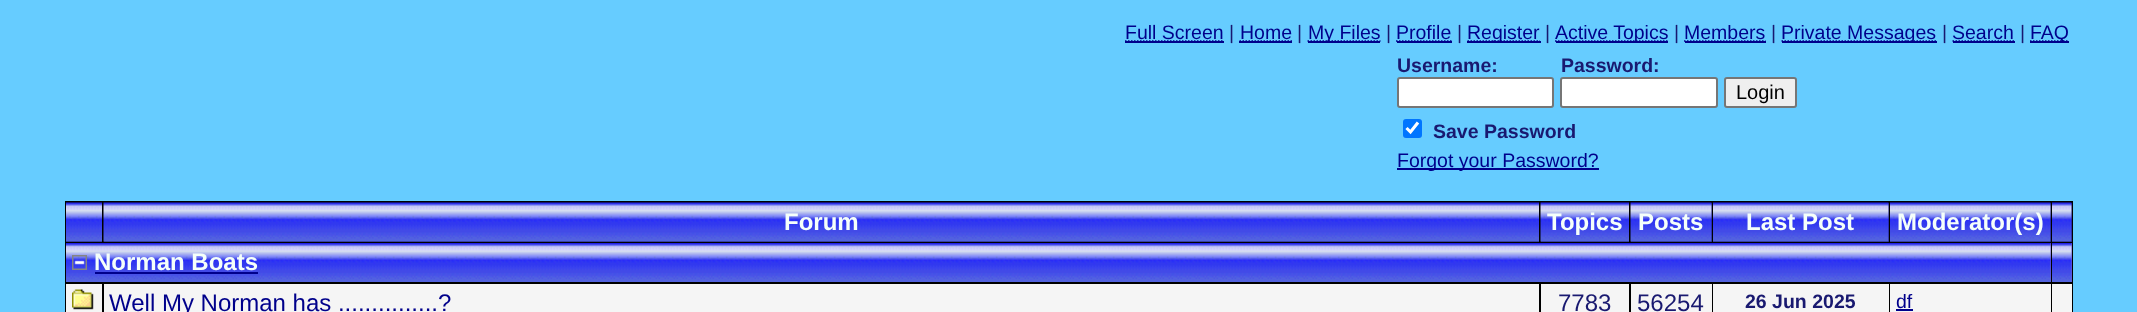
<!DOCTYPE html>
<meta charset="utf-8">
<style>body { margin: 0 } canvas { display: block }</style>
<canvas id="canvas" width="2137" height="312"></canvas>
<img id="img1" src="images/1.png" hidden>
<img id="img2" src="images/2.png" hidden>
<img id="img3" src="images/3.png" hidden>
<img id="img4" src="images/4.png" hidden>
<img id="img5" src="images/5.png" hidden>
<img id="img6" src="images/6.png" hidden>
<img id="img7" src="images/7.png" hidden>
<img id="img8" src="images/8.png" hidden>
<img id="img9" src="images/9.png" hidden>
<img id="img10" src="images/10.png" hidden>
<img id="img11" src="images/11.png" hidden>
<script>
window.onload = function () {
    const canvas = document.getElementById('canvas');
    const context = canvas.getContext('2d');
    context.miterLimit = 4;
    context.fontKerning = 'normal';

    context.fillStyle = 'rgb(102, 204, 255)';
    context.fillRect(0, 0, 2137, 312);
    context.beginPath();
    context.moveTo(1125, 41);
    context.lineTo(1224, 41);
    context.strokeStyle = 'rgb(0, 0, 139)';
    context.lineWidth = 1.5;
    context.setLineDash([1.5, 1.5]);
    context.stroke();
    context.fillStyle = 'rgb(0, 0, 139)';
    context.fillRect(1125, 41, 99, 2);
    context.beginPath();
    context.moveTo(1239.5, 41);
    context.lineTo(1292, 41);
    context.stroke();
    context.fillRect(1239, 41, 53, 2);
    context.beginPath();
    context.moveTo(1307.5, 41);
    context.lineTo(1380.5, 41);
    context.stroke();
    context.fillRect(1308, 41, 72, 2);
    context.beginPath();
    context.moveTo(1396, 41);
    context.lineTo(1451.5, 41);
    context.stroke();
    context.fillRect(1397, 41, 55, 2);
    context.beginPath();
    context.moveTo(1467.5, 41);
    context.lineTo(1540, 41);
    context.stroke();
    context.fillRect(1467, 41, 74, 2);
    context.beginPath();
    context.moveTo(1555, 41);
    context.lineTo(1668.5, 41);
    context.stroke();
    context.fillRect(1556, 41, 112, 2);
    context.beginPath();
    context.moveTo(1684, 41);
    context.lineTo(1765.5, 41);
    context.stroke();
    context.fillRect(1685, 41, 81, 2);
    context.beginPath();
    context.moveTo(1781.5, 41);
    context.lineTo(1936.5, 41);
    context.stroke();
    context.fillRect(1782, 41, 155, 2);
    context.beginPath();
    context.moveTo(1952.5, 41);
    context.lineTo(2014, 41);
    context.stroke();
    context.fillRect(1953, 41, 62, 2);
    context.beginPath();
    context.moveTo(2030, 41);
    context.lineTo(2069, 41);
    context.stroke();
    context.fillRect(2030, 41, 39, 2);
    context.fillStyle = 'rgb(255, 255, 255)';
    context.beginPath();
    context.roundRect(1398, 78, 155, 29, 2);
    context.fill();
    context.strokeStyle = 'rgb(118, 118, 118)';
    context.lineWidth = 2;
    context.setLineDash([]);
    context.stroke();
    context.beginPath();
    context.roundRect(1561, 78, 156, 29, 2);
    context.fill();
    context.stroke();
    context.fillStyle = 'rgb(239, 239, 239)';
    context.beginPath();
    context.roundRect(1725, 78, 71, 29, 2);
    context.fill();
    context.stroke();
    context.fillStyle = 'rgb(0, 117, 255)';
    context.beginPath();
    context.roundRect(1403, 119, 19, 19, 3);
    context.fill();
    context.beginPath();
    context.moveTo(1406.5, 128);
    context.lineTo(1410.5, 132);
    context.lineTo(1418, 122.5);
    context.strokeStyle = 'rgb(255, 255, 255)';
    context.lineWidth = 3.1;
    context.stroke();
    context.fillStyle = 'rgb(0, 0, 139)';
    context.fillRect(1397, 168, 202, 2);
    context.fillStyle = 'rgb(0, 0, 0)';
    context.fillRect(65, 201, 2008, 111);
    context.fillStyle = 'rgb(25, 25, 112)';
    context.fillRect(66, 241, 36, 1);
    context.drawImage(document.getElementById('img1'), 66, 202, 36, 40);
    context.fillRect(104, 241, 1435, 1);
    context.drawImage(document.getElementById('img2'), 103, 202, 1436, 40);
    context.fillRect(1541, 241, 88, 1);
    context.drawImage(document.getElementById('img3'), 1540, 202, 89, 40);
    context.fillRect(1631, 203, 81, 39);
    context.drawImage(document.getElementById('img4'), 1630, 202, 82, 40);
    context.fillRect(1713, 203, 176, 39);
    context.drawImage(document.getElementById('img5'), 1713, 202, 176, 40);
    context.fillRect(1890, 203, 161, 39);
    context.drawImage(document.getElementById('img6'), 1890, 202, 161, 40);
    context.fillRect(2052, 203, 20, 39);
    context.drawImage(document.getElementById('img7'), 2052, 202, 20, 40);
    context.fillStyle = 'rgb(106, 90, 205)';
    context.fillRect(2050, 243, 1, 39);
    context.drawImage(document.getElementById('img8'), 66, 243, 1985, 39);
    context.drawImage(document.getElementById('img9'), 72, 255, 15, 15);
    context.fillStyle = 'rgb(0, 0, 139)';
    context.fillRect(95, 272, 163, 2);
    context.fillStyle = 'rgb(106, 90, 205)';
    context.fillRect(2071, 243, 1, 39);
    context.drawImage(document.getElementById('img10'), 2052, 243, 20, 39);
    context.fillStyle = 'rgb(245, 245, 245)';
    context.fillRect(66, 284, 36, 28);
    context.drawImage(document.getElementById('img11'), 72, 289, 22, 21);
    context.fillRect(104, 284, 1435, 28);
    context.fillRect(1541, 284, 88, 28);
    context.fillRect(1631, 284, 81, 28);
    context.fillRect(1713, 284, 176, 28);
    context.fillRect(1890, 284, 161, 28);
    context.fillStyle = 'rgb(0, 0, 139)';
    context.fillRect(1896, 309, 17, 2);
    context.fillStyle = 'rgb(245, 245, 245)';
    context.fillRect(2052, 284, 20, 28);
    context.font = '19.5px Liberation Sans';
    context.fillStyle = 'rgb(0, 0, 139)';
    context.fillText('Full Screen', 1125, 39);
    context.fillStyle = 'rgb(25, 25, 112)';
    context.fillText('|', 1229, 39);
    context.fillStyle = 'rgb(0, 0, 139)';
    context.fillText('Home', 1240, 39);
    context.fillStyle = 'rgb(25, 25, 112)';
    context.fillText('|', 1297, 39);
    context.fillStyle = 'rgb(0, 0, 139)';
    context.fillText('My Files', 1308, 39);
    context.fillStyle = 'rgb(25, 25, 112)';
    context.fillText('|', 1386, 39);
    context.fillStyle = 'rgb(0, 0, 139)';
    context.fillText('Profile', 1396, 39);
    context.fillStyle = 'rgb(25, 25, 112)';
    context.fillText('|', 1457, 39);
    context.fillStyle = 'rgb(0, 0, 139)';
    context.fillText('Register', 1467, 39);
    context.fillStyle = 'rgb(25, 25, 112)';
    context.fillText('|', 1545, 39);
    context.fillStyle = 'rgb(0, 0, 139)';
    context.fillText('Active Topics', 1555, 39);
    context.fillStyle = 'rgb(25, 25, 112)';
    context.fillText('|', 1674, 39);
    context.fillStyle = 'rgb(0, 0, 139)';
    context.fillText('Members', 1684, 39);
    context.fillStyle = 'rgb(25, 25, 112)';
    context.fillText('|', 1771, 39);
    context.fillStyle = 'rgb(0, 0, 139)';
    context.fillText('Private Messages', 1781, 39);
    context.fillStyle = 'rgb(25, 25, 112)';
    context.fillText('|', 1942, 39);
    context.fillStyle = 'rgb(0, 0, 139)';
    context.fillText('Search', 1952, 39);
    context.fillStyle = 'rgb(25, 25, 112)';
    context.fillText('|', 2020, 39);
    context.fillStyle = 'rgb(0, 0, 139)';
    context.fillText('FAQ', 2030, 39);
    context.font = 'bold 19.5px Liberation Sans';
    context.fillStyle = 'rgb(25, 25, 112)';
    context.fillText('Username:', 1397, 72);
    context.fillText('Password:', 1561, 72);
    context.font = '20px Liberation Sans';
    context.fillStyle = 'rgb(0, 0, 0)';
    context.fillText('Login', 1736, 99);
    context.font = 'bold 19.5px Liberation Sans';
    context.fillStyle = 'rgb(25, 25, 112)';
    context.fillText('Save Password', 1433, 138);
    context.font = '19.5px Liberation Sans';
    context.fillStyle = 'rgb(0, 0, 139)';
    context.fillText('Forgot your Password?', 1397, 167);
    context.font = 'bold 24px Liberation Sans';
    context.fillStyle = 'rgb(245, 255, 250)';
    context.fillText('Forum', 784, 230);
    context.fillText('Topics', 1547, 230);
    context.fillText('Posts', 1638, 230);
    context.fillText('Last Post', 1746, 230);
    context.fillText('Moderator(s)', 1897, 230);
    context.fillText('Norman Boats', 94, 270);
    context.font = '24px Liberation Sans';
    context.fillStyle = 'rgb(0, 0, 139)';
    context.fillText('Well My Norman has ...............?', 109, 311);
    context.fillStyle = 'rgb(25, 25, 112)';
    context.fillText('7783', 1558, 311);
    context.fillText('56254', 1637, 311);
    context.font = 'bold 19.5px Liberation Sans';
    context.fillText('26 Jun 2025', 1745, 308);
    context.font = '19.5px Liberation Sans';
    context.fillStyle = 'rgb(0, 0, 139)';
    context.fillText('df', 1896, 308);
};
</script>
